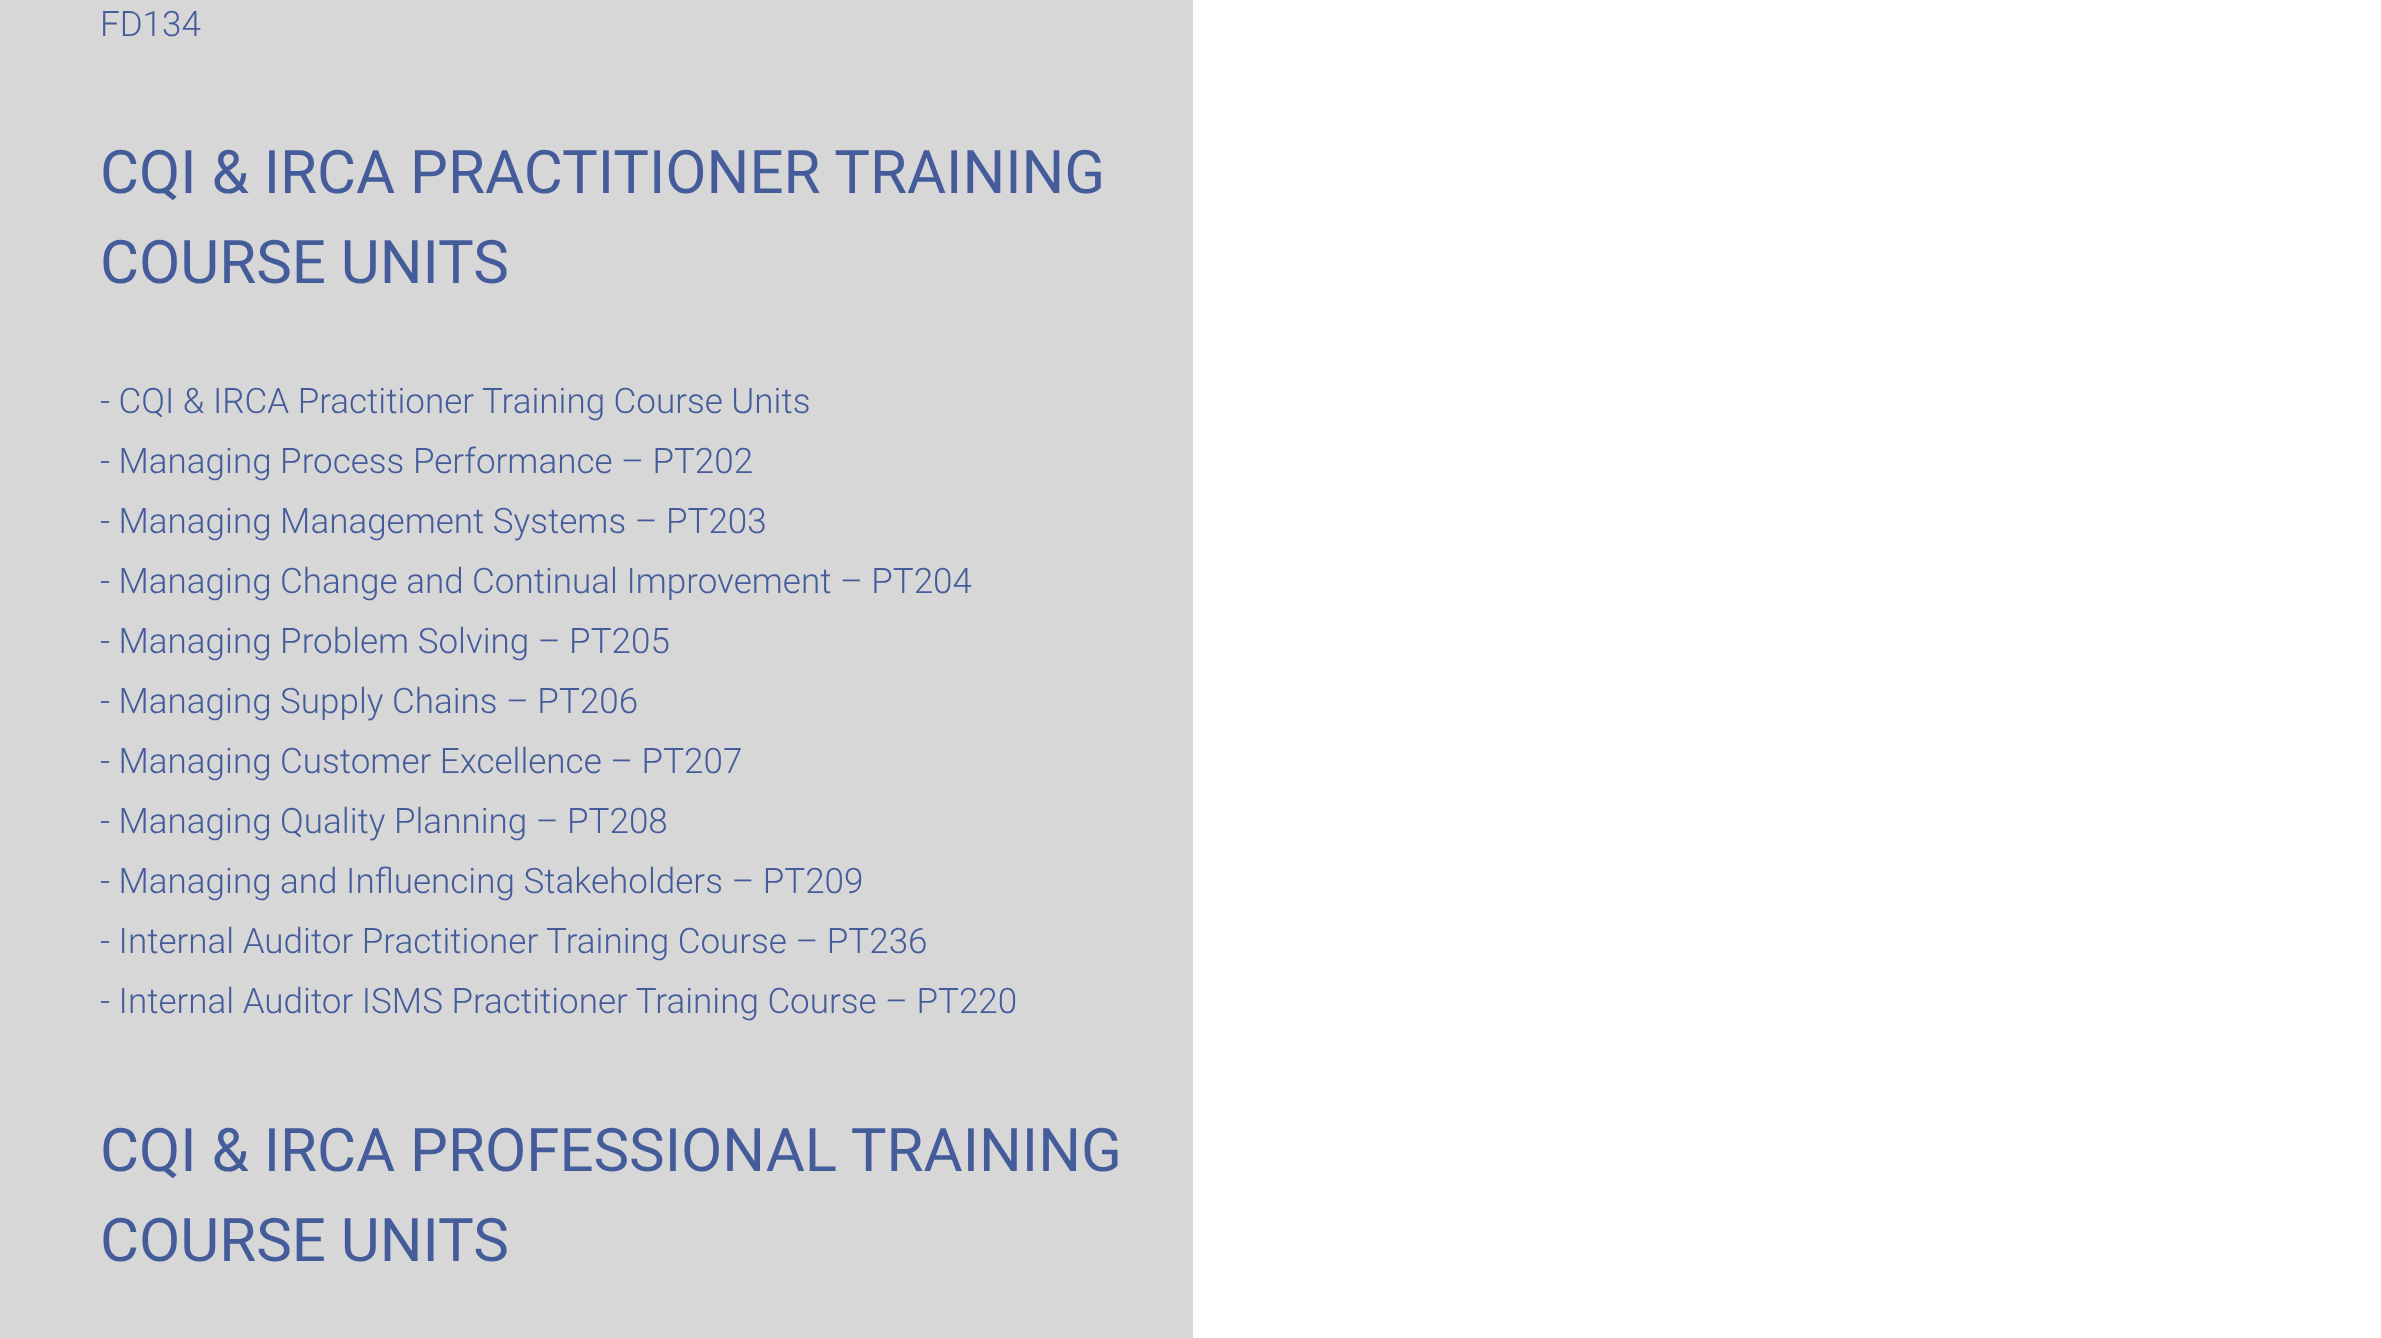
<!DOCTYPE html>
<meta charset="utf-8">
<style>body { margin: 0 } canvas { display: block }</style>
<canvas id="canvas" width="2381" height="1338"></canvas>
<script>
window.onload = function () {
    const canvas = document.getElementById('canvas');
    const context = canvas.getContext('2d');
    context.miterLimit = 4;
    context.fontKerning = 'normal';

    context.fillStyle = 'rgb(255, 255, 255)';
    context.fillRect(0, 0, 2381, 1338);
    context.fillStyle = 'rgb(215, 215, 215)';
    context.fillRect(0, 0, 1193, 1338);
    context.font = '300 35px Roboto';
    context.fillStyle = 'rgb(69, 92, 155)';
    context.fillText('FD134', 100, 36);
    context.font = '60px Roboto';
    context.fillText('CQI & IRCA PRACTITIONER TRAINING', 100, 193);
    context.fillText('COURSE UNITS', 100, 283);
    context.font = '300 35px Roboto';
    context.fillText('- CQI & IRCA Practitioner Training Course Units', 100, 413);
    context.fillText('- Managing Process Performance – PT202', 100, 473);
    context.fillText('- Managing Management Systems – PT203', 100, 533);
    context.fillText('- Managing Change and Continual Improvement – PT204', 100, 593);
    context.fillText('- Managing Problem Solving – PT205', 100, 653);
    context.fillText('- Managing Supply Chains – PT206', 100, 713);
    context.fillText('- Managing Customer Excellence – PT207', 100, 773);
    context.fillText('- Managing Quality Planning – PT208', 100, 833);
    context.fillText('- Managing and Influencing Stakeholders – PT209', 100, 893);
    context.fillText('- Internal Auditor Practitioner Training Course – PT236', 100, 953);
    context.fillText('- Internal Auditor ISMS Practitioner Training Course – PT220', 100, 1013);
    context.font = '60px Roboto';
    context.fillText('CQI & IRCA PROFESSIONAL TRAINING', 100, 1171);
    context.fillText('COURSE UNITS', 100, 1261);
};
</script>
